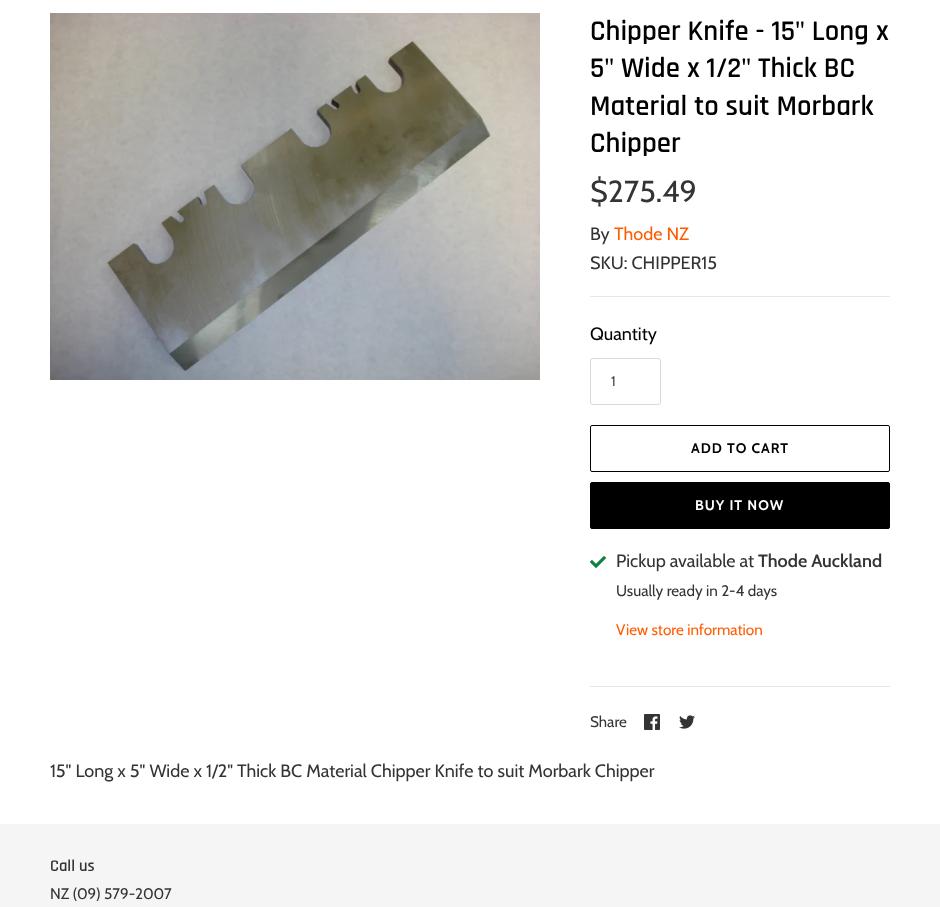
<!DOCTYPE html>
<meta charset="utf-8">
<style>body { margin: 0 } canvas { display: block }</style>
<canvas id="canvas" width="940" height="907"></canvas>
<img id="img1" src="images/1.png" hidden>
<img id="img2" src="images/2.png" hidden>
<img id="img3" src="images/3.png" hidden>
<img id="img4" src="images/4.png" hidden>
<script>
window.onload = function () {
    const canvas = document.getElementById('canvas');
    const context = canvas.getContext('2d');
    context.miterLimit = 4;
    context.fontKerning = 'normal';

    context.fillStyle = 'rgb(255, 255, 255)';
    context.fillRect(0, 0, 940, 907);
    context.drawImage(document.getElementById('img1'), 50, 13, 490, 367);
    context.fillStyle = 'rgb(231, 231, 231)';
    context.fillRect(590, 296, 300, 1);
    context.beginPath();
    context.roundRect(590.5, 358.5, 70, 46, 2.5);
    context.strokeStyle = 'rgb(217, 217, 217)';
    context.stroke();
    context.beginPath();
    context.roundRect(590.5, 425.5, 299, 46, 1.5);
    context.strokeStyle = 'rgb(0, 0, 0)';
    context.stroke();
    context.fillStyle = 'rgb(0, 0, 0)';
    context.beginPath();
    context.roundRect(590.5, 482.5, 299, 46, 1.5);
    context.fill();
    context.stroke();
    context.drawImage(document.getElementById('img2'), 590, 556, 16, 12);
    context.fillStyle = 'rgb(231, 231, 231)';
    context.fillRect(590, 686, 300, 1);
    context.drawImage(document.getElementById('img3'), 644, 714, 16, 16);
    context.drawImage(document.getElementById('img4'), 679, 715, 16, 14);
    context.fillStyle = 'rgb(245, 245, 245)';
    context.fillRect(0, 824, 940, 83);
    context.font = '600 28.75px Rajdhani';
    context.fillStyle = 'rgb(0, 0, 0)';
    context.fillText('Chipper Knife - 15" Long x', 590, 40);
    context.fillText('5" Wide x 1/2" Thick BC', 590, 77);
    context.fillText('Material to suit Morbark', 590, 115);
    context.fillText('Chipper', 590, 152);
    context.font = '30.5px Cabin';
    context.fillStyle = 'rgb(52, 52, 52)';
    context.fillText('$275.49', 590, 202);
    context.font = '18px Cabin';
    context.fillText('By', 590, 240);
    context.fillStyle = 'rgb(255, 92, 0)';
    context.fillText('Thode NZ', 614, 240);
    context.fillStyle = 'rgb(52, 52, 52)';
    context.fillText('SKU: CHIPPER15', 590, 269);
    context.fillStyle = 'rgb(0, 0, 0)';
    context.fillText('Quantity', 590, 340);
    context.font = '14px Cabin';
    context.fillStyle = 'rgb(68, 68, 68)';
    context.fillText('1', 611, 386);
    context.letterSpacing = '1px';
    context.font = 'bold 14px Cabin';
    context.fillStyle = 'rgb(0, 0, 0)';
    context.fillText('ADD TO CART', 691, 453);
    context.fillStyle = 'rgb(255, 255, 255)';
    context.fillText('BUY IT NOW', 695, 510);
    context.letterSpacing = '0px';
    context.font = '18px Cabin';
    context.fillStyle = 'rgb(52, 52, 52)';
    context.fillText('Pickup available at', 616, 567);
    context.font = '600 18px Cabin';
    context.fillText('Thode Auckland', 758, 567);
    context.font = '15.25px Cabin';
    context.fillText('Usually ready in 2-4 days', 616, 596);
    context.fillStyle = 'rgb(255, 92, 0)';
    context.fillText('View store information', 616, 635);
    context.fillStyle = 'rgb(52, 52, 52)';
    context.fillText('Share', 590, 727);
    context.font = '18px Cabin';
    context.fillText('15" Long x 5" Wide x 1/2" Thick BC Material Chipper Knife to suit Morbark Chipper', 50, 777);
    context.font = '600 16.5px Rajdhani';
    context.fillText('Call us', 50, 871);
    context.font = '15.25px Cabin';
    context.fillText('NZ (09) 579-2007', 50, 899);
};
</script>
